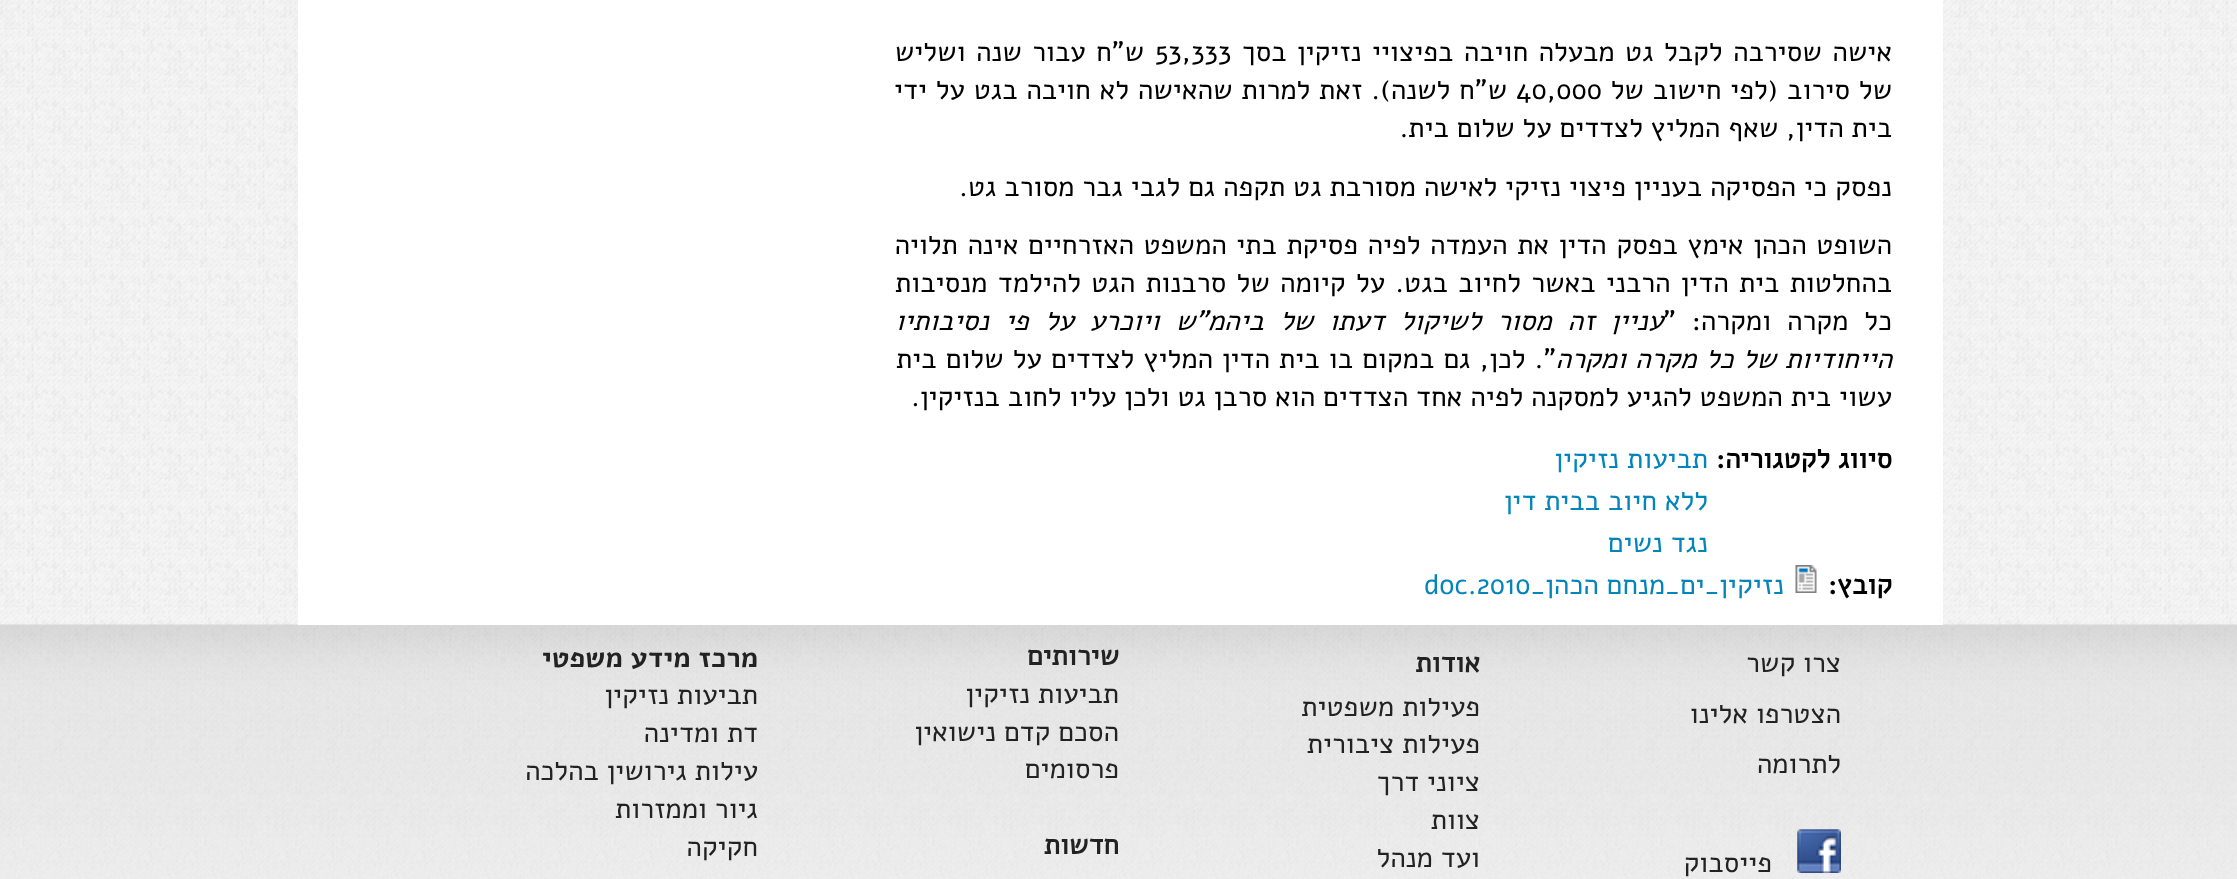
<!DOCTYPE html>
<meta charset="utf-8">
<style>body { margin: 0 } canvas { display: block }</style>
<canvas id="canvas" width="2237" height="879"></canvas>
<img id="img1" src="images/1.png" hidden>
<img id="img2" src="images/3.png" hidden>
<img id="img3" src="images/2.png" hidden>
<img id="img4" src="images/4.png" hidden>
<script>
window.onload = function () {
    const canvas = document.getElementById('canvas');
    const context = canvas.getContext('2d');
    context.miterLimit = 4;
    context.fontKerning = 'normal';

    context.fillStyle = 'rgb(255, 255, 255)';
    context.fillRect(0, 0, 2237, 879);
    context.drawImage(document.getElementById('img1'), 0, 0, 2237, 625);
    context.drawImage(document.getElementById('img2'), 0, 624, 2237, 255);
    context.fillRect(298, 0, 1645, 625);
    context.drawImage(document.getElementById('img3'), 1795, 565, 22, 28);
    context.drawImage(document.getElementById('img4'), 1797, 829, 44, 44);
    context.wordSpacing = '2.5px';
    context.direction = 'rtl';
    context.font = '28px Alef';
    context.fillStyle = 'rgb(0, 0, 0)';
    context.fillText('אישה שסירבה לקבל גט מבעלה חויבה בפיצויי נזיקין בסך', 1892, 61);
    context.wordSpacing = '0px';
    context.direction = 'ltr';
    context.fillText('53,333', 1155, 61);
    context.wordSpacing = '2.5px';
    context.direction = 'rtl';
    context.fillText('ש"ח עבור שנה ושליש', 1144, 61);
    context.wordSpacing = '0.9px';
    context.fillText('של סירוב (לפי חישוב של', 1892, 99);
    context.wordSpacing = '0px';
    context.direction = 'ltr';
    context.fillText('40,000', 1516, 99);
    context.wordSpacing = '0.9px';
    context.direction = 'rtl';
    context.fillText('ש"ח לשנה). זאת למרות שהאישה לא חויבה בגט על ידי', 1507, 99);
    context.wordSpacing = '0px';
    context.fillText('בית הדין, שאף המליץ לצדדים על שלום בית.', 1892, 137);
    context.fillText('נפסק כי הפסיקה בעניין פיצוי נזיקי לאישה מסורבת גט תקפה גם לגבי גבר מסורב גט.', 1892, 196);
    context.wordSpacing = '1.75px';
    context.fillText('השופט הכהן אימץ בפסק הדין את העמדה לפיה פסיקת בתי המשפט האזרחיים אינה תלויה', 1892, 254);
    context.wordSpacing = '2.4px';
    context.fillText('בהחלטות בית הדין הרבני באשר לחיוב בגט. על קיומה של סרבנות הגט להילמד מנסיבות', 1892, 292);
    context.wordSpacing = '8px';
    context.fillText('כל מקרה ומקרה: "', 1892, 330);
    context.font = 'italic 28px Alef';
    context.fillText('עניין זה מסור לשיקול דעתו של ביהמ"ש ויוכרע על פי נסיבותיו', 1663, 330);
    context.wordSpacing = '1.25px';
    context.fillText('הייחודיות של כל מקרה ומקרה', 1892, 368);
    context.font = '28px Alef';
    context.fillText('". לכן, גם במקום בו בית הדין המליץ לצדדים על שלום בית', 1556, 368);
    context.wordSpacing = '0px';
    context.fillText('עשוי בית המשפט להגיע למסקנה לפיה אחד הצדדים הוא סרבן גט ולכן עליו לחוב בנזיקין.', 1892, 406);
    context.font = 'bold 28px Alef';
    context.fillText('סיווג לקטגוריה:', 1892, 468);
    context.font = '28px Alef';
    context.fillStyle = 'rgb(3, 133, 188)';
    context.fillText('תביעות נזיקין', 1708, 468);
    context.fillText('ללא חיוב בבית דין', 1708, 510);
    context.fillText('נגד נשים', 1708, 552);
    context.font = 'bold 28px Alef';
    context.fillStyle = 'rgb(0, 0, 0)';
    context.fillText('קובץ:', 1892, 594);
    context.font = '28px Alef';
    context.fillStyle = 'rgb(3, 133, 188)';
    context.fillText('נזיקין_ים_מנחם הכהן_', 1784, 594);
    context.direction = 'ltr';
    context.fillText('doc.2010', 1424, 594);
    context.direction = 'rtl';
    context.fillStyle = 'rgb(34, 34, 34)';
    context.fillText('צרו קשר', 1841, 672);
    context.fillText('הצטרפו אלינו', 1841, 723);
    context.fillText('לתרומה', 1841, 773);
    context.fillText('פייסבוק', 1772, 872);
    context.font = 'bold 28px Alef';
    context.fillText('אודות', 1480, 672);
    context.font = '28px Alef';
    context.fillText('פעילות משפטית', 1480, 716);
    context.fillText('פעילות ציבורית', 1480, 753);
    context.fillText('ציוני דרך', 1480, 791);
    context.fillText('צוות', 1480, 829);
    context.fillText('ועד מנהל', 1480, 867);
    context.font = 'bold 28px Alef';
    context.fillText('שירותים', 1119, 665);
    context.font = '28px Alef';
    context.fillText('תביעות נזיקין', 1119, 703);
    context.fillText('הסכם קדם נישואין', 1119, 741);
    context.fillText('פרסומים', 1119, 778);
    context.font = 'bold 28px Alef';
    context.fillText('חדשות', 1119, 854);
    context.font = 'bold 28px "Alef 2"';
    context.fillText('מרכז מידע משפטי', 758, 667);
    context.font = '28px Alef';
    context.fillText('תביעות נזיקין', 758, 704);
    context.fillText('דת ומדינה', 758, 742);
    context.fillText('עילות גירושין בהלכה', 758, 780);
    context.fillText('גיור וממזרות', 758, 818);
    context.fillText('חקיקה', 758, 856);
};
</script>
